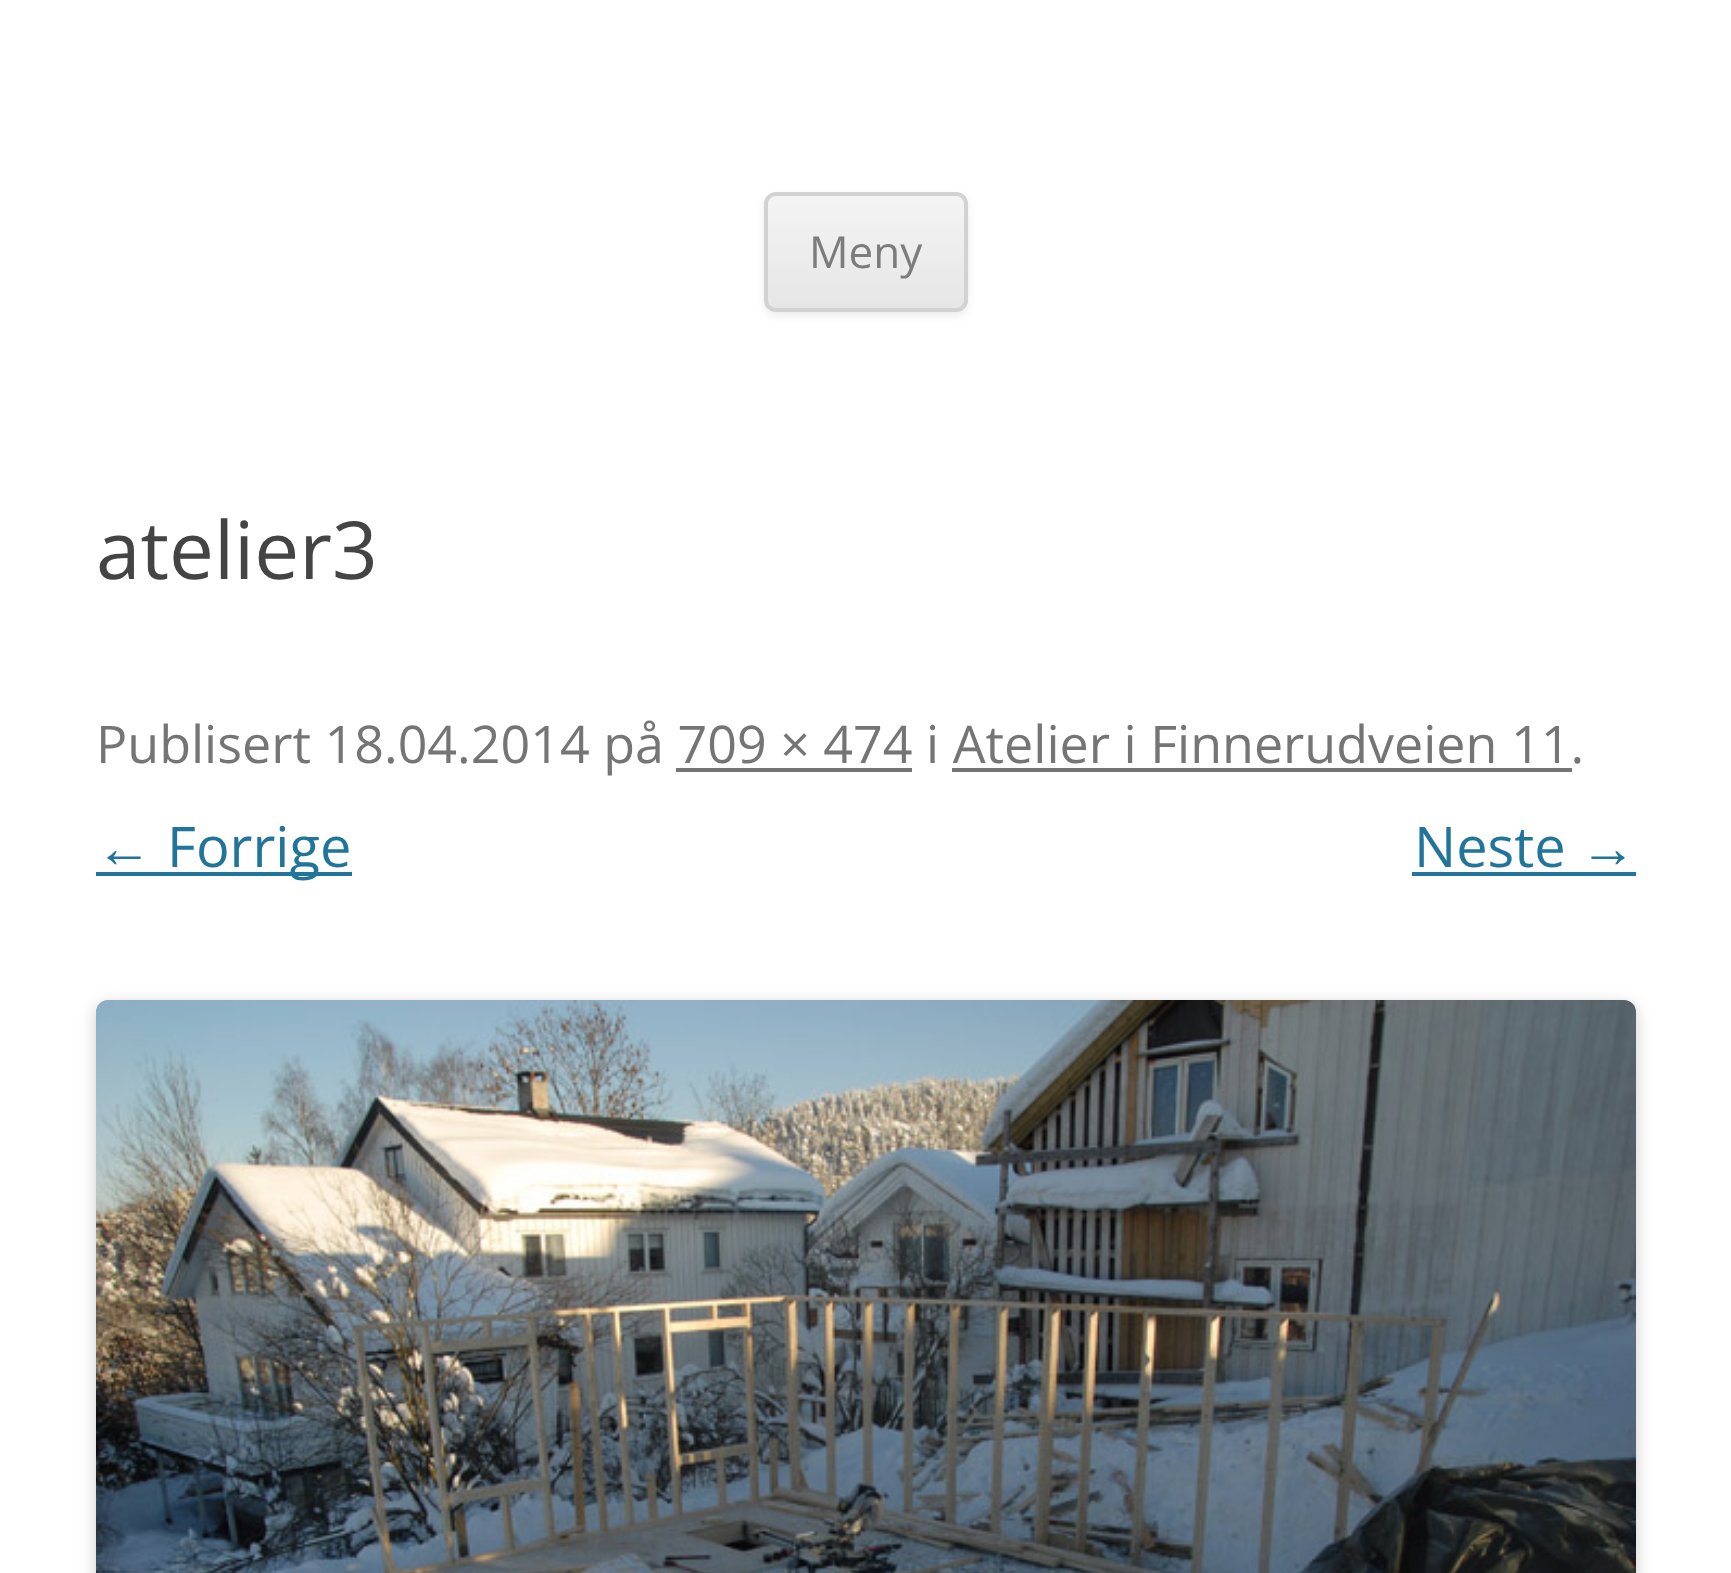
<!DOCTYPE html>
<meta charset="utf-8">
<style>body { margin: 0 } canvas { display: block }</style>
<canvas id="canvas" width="1731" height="1573"></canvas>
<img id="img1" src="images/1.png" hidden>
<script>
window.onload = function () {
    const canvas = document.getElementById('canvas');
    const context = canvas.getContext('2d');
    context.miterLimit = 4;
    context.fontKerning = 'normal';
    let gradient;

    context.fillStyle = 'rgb(255, 255, 255)';
    context.fillRect(0, 0, 1731, 1573);
    context.fillStyle = 'rgba(64, 64, 64, 0.1)';
    context.filter = 'blur(4px)';
    context.beginPath();
    context.roundRect(764, 196, 204, 120, 12);
    context.fill();
    context.filter = 'none';
    context.save();
    context.beginPath();
    context.roundRect(764, 192, 204, 120, 12);
    context.clip();
    gradient = context.createLinearGradient(866, 196, 866, 308);
    gradient.addColorStop(0, 'rgb(244, 244, 244)');
    gradient.addColorStop(1, 'rgb(230, 230, 230)');
    context.fillStyle = gradient;
    context.fillRect(764, 196, 204, 112);
    context.restore();
    context.beginPath();
    context.roundRect(766, 194, 200, 116, 10);
    context.strokeStyle = 'rgb(210, 210, 210)';
    context.lineWidth = 4;
    context.stroke();
    context.fillStyle = 'rgb(117, 117, 117)';
    context.fillRect(676, 768, 236, 4);
    context.fillRect(952, 768, 620, 4);
    context.fillStyle = 'rgb(33, 117, 155)';
    context.fillRect(96, 872, 256, 4);
    context.fillRect(1412, 872, 224, 4);
    context.fillStyle = 'rgba(0, 0, 0, 0.2)';
    context.filter = 'blur(8px)';
    context.beginPath();
    context.roundRect(96, 1004, 1540, 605, 12);
    context.fill();
    context.filter = 'none';
    context.drawImage(document.getElementById('img1'), 96, 1000, 1540, 573);
    context.font = '44px Open Sans';
    context.fillStyle = 'rgb(124, 124, 124)';
    context.fillText('Meny', 809, 268);
    context.font = '80px Open Sans';
    context.fillStyle = 'rgb(68, 68, 68)';
    context.fillText('atelier3', 96, 579);
    context.font = '52px Open Sans';
    context.fillStyle = 'rgb(117, 117, 117)';
    context.fillText('Publisert 18.04.2014 på 709 × 474 i Atelier i Finnerudveien 11.', 96, 763);
    context.font = '56px Liberation Sans';
    context.fillStyle = 'rgb(33, 117, 155)';
    context.fillText('←', 96, 867);
    context.font = '56px Open Sans';
    context.fillText('Forrige', 167, 867);
    context.fillText('Neste', 1414, 867);
    context.font = '56px Liberation Sans';
    context.fillText('→', 1580, 867);
};
</script>
